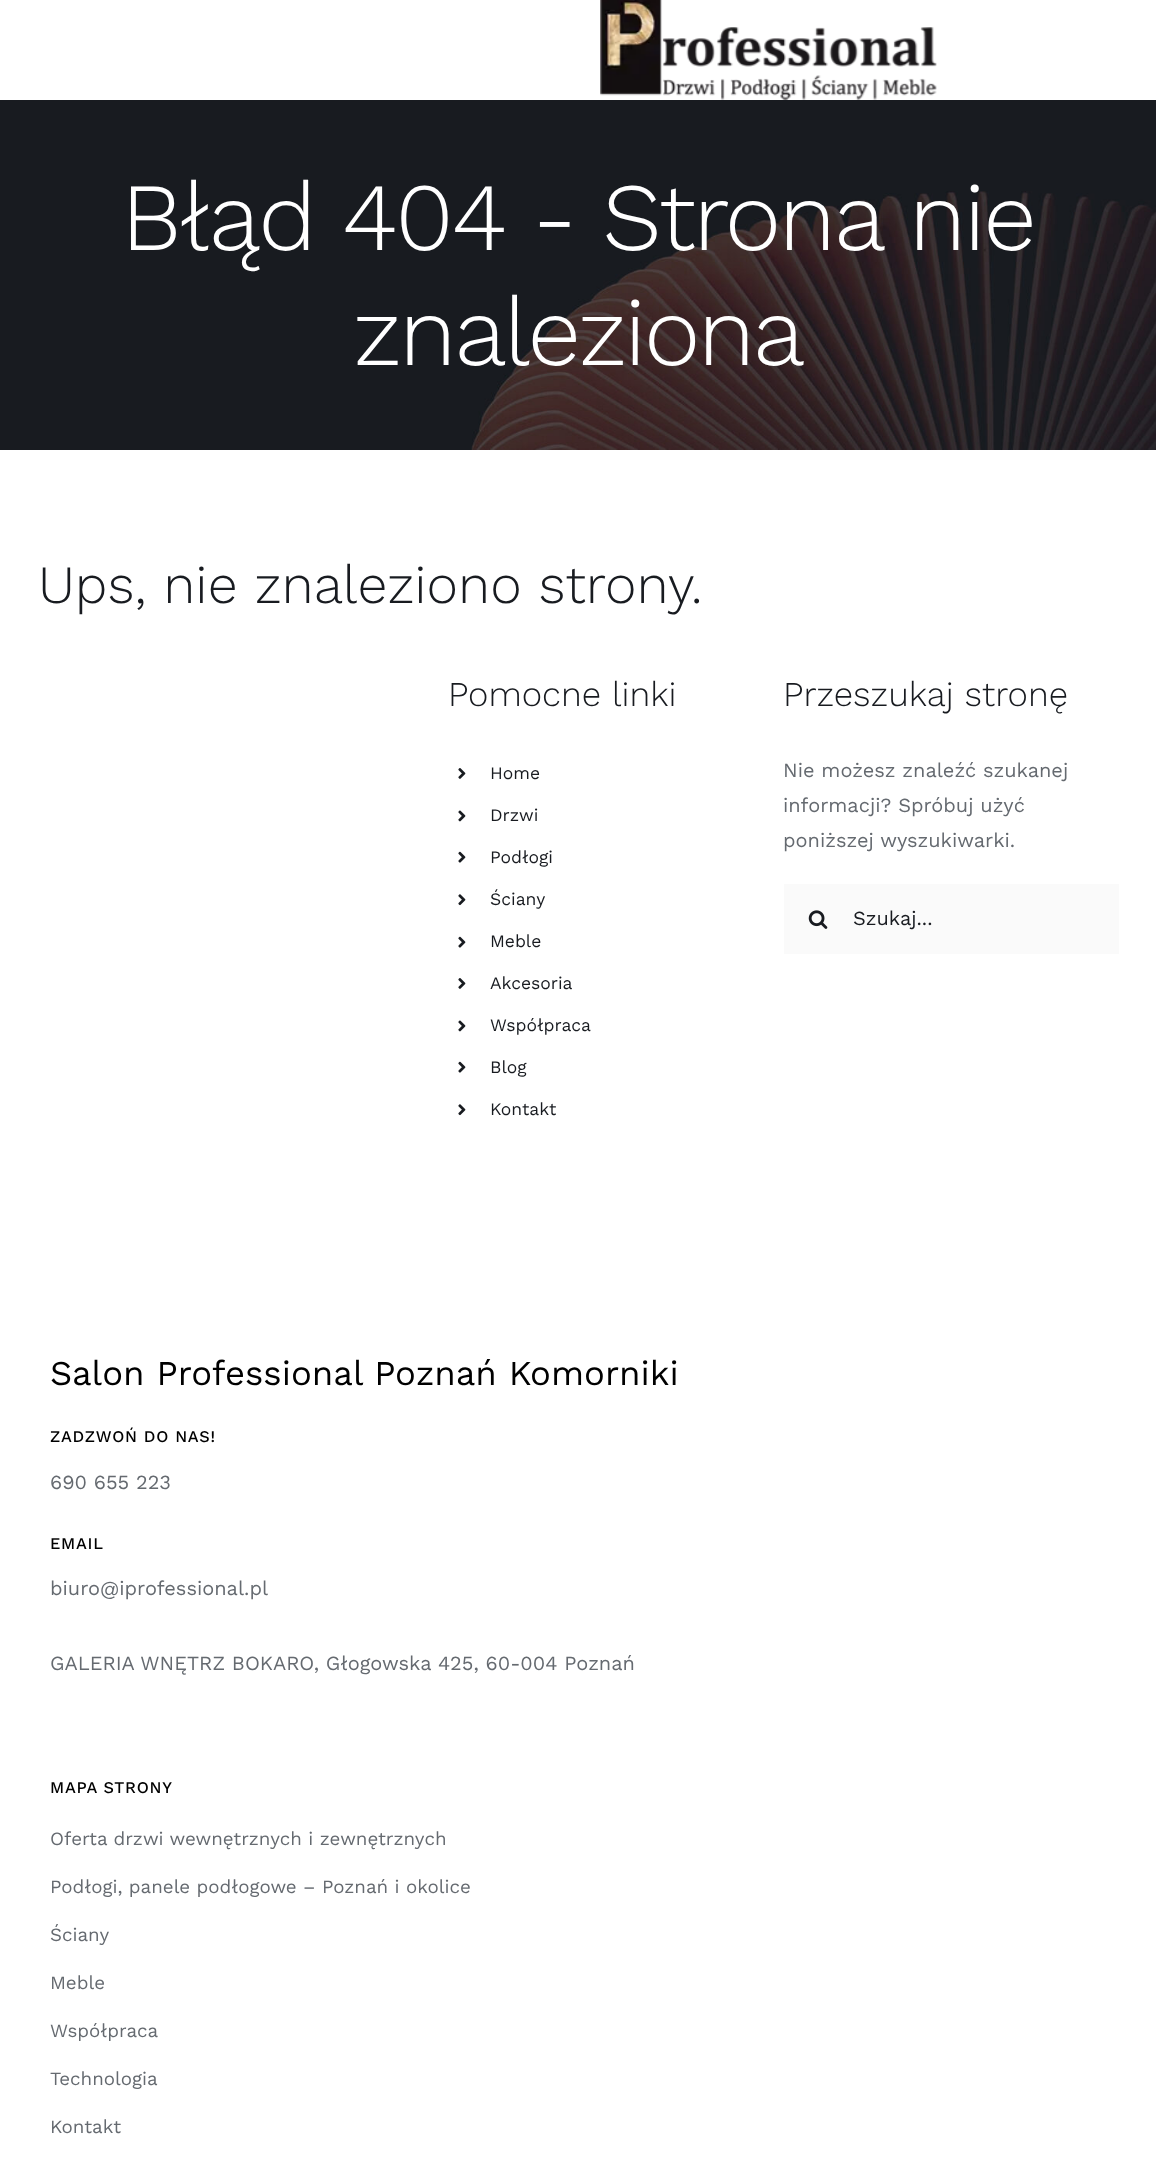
<!DOCTYPE html>
<meta charset="utf-8">
<style>body { margin: 0 } canvas { display: block }</style>
<canvas id="canvas" width="1156" height="2161"></canvas>
<img id="img1" src="images/1.png" hidden>
<img id="img2" src="images/2.png" hidden>
<img id="img3" src="images/3.png" hidden>
<img id="img4" src="images/4.png" hidden>
<img id="img5" src="images/5.png" hidden>
<img id="img6" src="images/6.png" hidden>
<img id="img7" src="images/7.png" hidden>
<script>
window.onload = function () {
    const canvas = document.getElementById('canvas');
    const context = canvas.getContext('2d');
    context.miterLimit = 4;
    context.fontKerning = 'normal';

    context.fillStyle = 'rgb(255, 255, 255)';
    context.fillRect(0, 0, 1156, 2161);
    context.drawImage(document.getElementById('img1'), 600, 0, 337, 100);
    context.fillStyle = 'rgb(24, 27, 32)';
    context.fillRect(0, 100, 1156, 350);
    context.drawImage(document.getElementById('img2'), 471, 191, 685, 259);
    context.drawImage(document.getElementById('img3'), 458, 768, 8, 11);
    context.drawImage(document.getElementById('img4'), 458, 810, 8, 12);
    context.drawImage(document.getElementById('img5'), 458, 851, 8, 12);
    context.drawImage(document.getElementById('img6'), 458, 894, 8, 12);
    context.drawImage(document.getElementById('img5'), 458, 936, 8, 12);
    context.drawImage(document.getElementById('img3'), 458, 978, 8, 11);
    context.drawImage(document.getElementById('img4'), 458, 1020, 8, 12);
    context.drawImage(document.getElementById('img5'), 458, 1061, 8, 12);
    context.drawImage(document.getElementById('img6'), 458, 1104, 8, 12);
    context.fillStyle = 'rgb(250, 250, 250)';
    context.fillRect(784, 884, 335, 70);
    context.drawImage(document.getElementById('img7'), 808, 910, 20, 19);
    context.letterSpacing = '-2.5px';
    context.font = '300 96.25px Work Sans';
    context.fillStyle = 'rgb(255, 255, 255)';
    context.fillText('Błąd 404 - Strona nie', 121, 250);
    context.fillText('znaleziona', 353, 365);
    context.letterSpacing = '0px';
    context.font = '300 53.75px Work Sans';
    context.fillStyle = 'rgb(24, 27, 32)';
    context.fillText('Ups, nie znaleziono strony.', 38, 603);
    context.font = '300 34.75px Work Sans';
    context.fillText('Pomocne linki', 448, 706);
    context.font = '17.5px Work Sans';
    context.fillText('Home', 490, 779);
    context.fillText('Drzwi', 490, 821);
    context.fillText('Podłogi', 490, 863);
    context.fillText('Ściany', 490, 905);
    context.fillText('Meble', 490, 947);
    context.fillText('Akcesoria', 490, 989);
    context.fillText('Współpraca', 490, 1031);
    context.fillText('Blog', 490, 1073);
    context.fillText('Kontakt', 490, 1115);
    context.font = '300 34.75px Work Sans';
    context.fillText('Przeszukaj stronę', 783, 706);
    context.font = '20px Work Sans';
    context.fillStyle = 'rgb(101, 106, 112)';
    context.fillText('Nie możesz znaleźć szukanej', 783, 777);
    context.fillText('informacji? Spróbuj użyć', 783, 812);
    context.fillText('poniższej wyszukiwarki.', 783, 847);
    context.fillStyle = 'rgb(24, 27, 32)';
    context.fillText('Szukaj...', 853, 925);
    context.font = '34.75px Work Sans';
    context.fillStyle = 'rgb(0, 0, 0)';
    context.fillText('Salon Professional Poznań Komorniki', 50, 1385);
    context.letterSpacing = '0.75px';
    context.font = '500 16.25px Work Sans';
    context.fillText('ZADZWOŃ DO NAS!', 50, 1442);
    context.letterSpacing = '0px';
    context.font = '20px Work Sans';
    context.fillStyle = 'rgb(101, 106, 112)';
    context.fillText('690 655 223', 50, 1489);
    context.letterSpacing = '0.75px';
    context.font = '500 16.25px Work Sans';
    context.fillStyle = 'rgb(0, 0, 0)';
    context.fillText('EMAIL', 50, 1549);
    context.letterSpacing = '0px';
    context.font = '20px Work Sans';
    context.fillStyle = 'rgb(101, 106, 112)';
    context.fillText('biuro@iprofessional.pl', 50, 1595);
    context.fillText('GALERIA WNĘTRZ BOKARO, Głogowska 425, 60-004 Poznań', 50, 1670);
    context.letterSpacing = '0.75px';
    context.font = '500 16.25px Work Sans';
    context.fillStyle = 'rgb(0, 0, 0)';
    context.fillText('MAPA STRONY', 50, 1793);
    context.letterSpacing = '0px';
    context.font = '18.75px Work Sans';
    context.fillStyle = 'rgb(101, 106, 112)';
    context.fillText('Oferta drzwi wewnętrznych i zewnętrznych', 50, 1845);
    context.fillText('Podłogi, panele podłogowe – Poznań i okolice', 50, 1893);
    context.fillText('Ściany', 50, 1941);
    context.fillText('Meble', 50, 1989);
    context.fillText('Współpraca', 50, 2037);
    context.fillText('Technologia', 50, 2085);
    context.fillText('Kontakt', 50, 2133);
};
</script>
